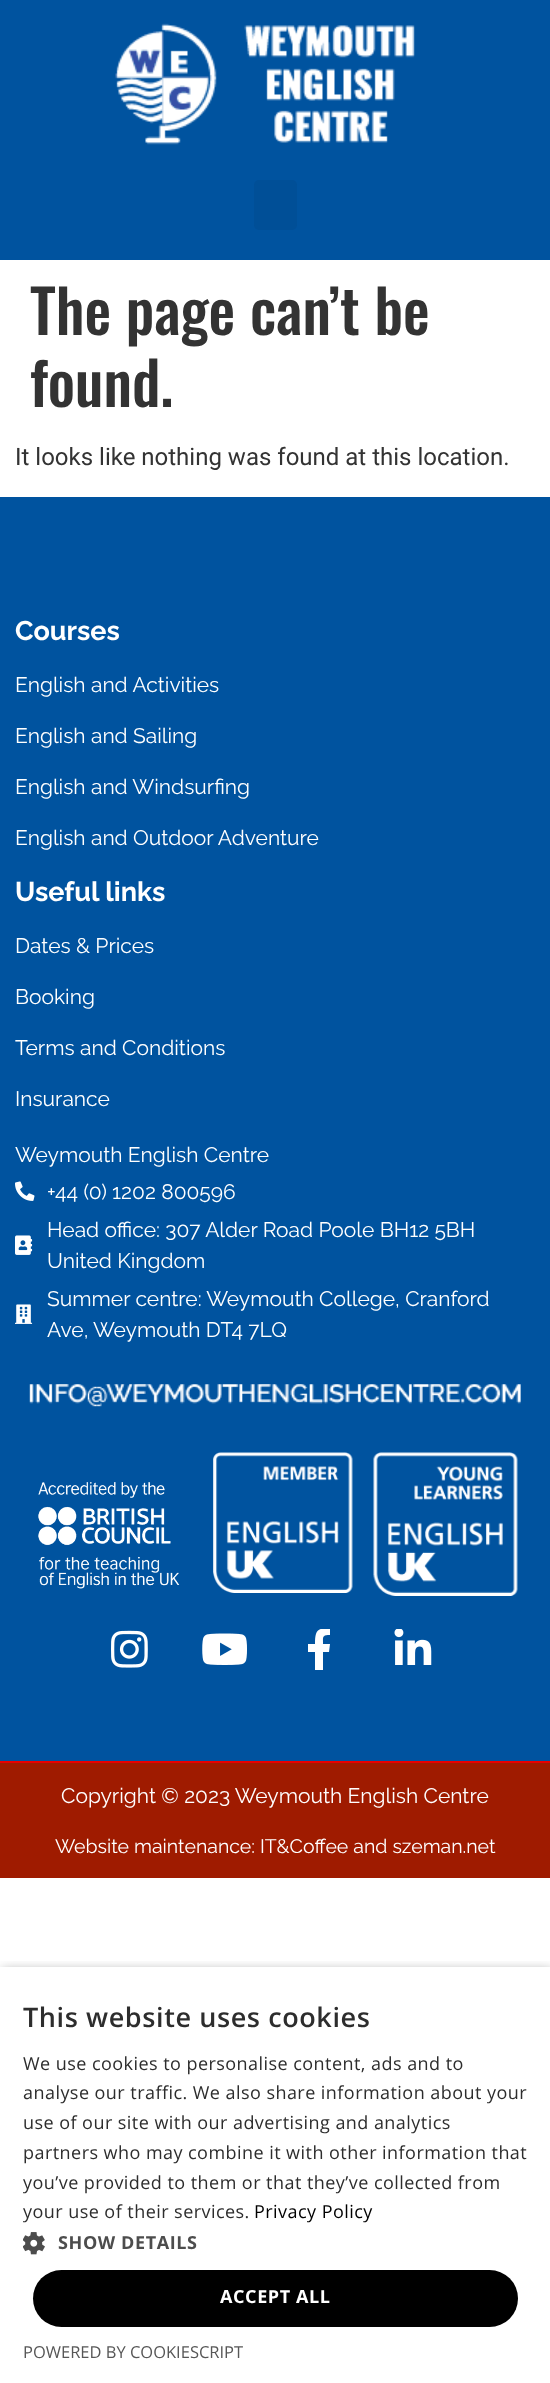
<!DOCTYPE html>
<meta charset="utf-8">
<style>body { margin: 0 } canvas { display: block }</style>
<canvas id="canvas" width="550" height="2383"></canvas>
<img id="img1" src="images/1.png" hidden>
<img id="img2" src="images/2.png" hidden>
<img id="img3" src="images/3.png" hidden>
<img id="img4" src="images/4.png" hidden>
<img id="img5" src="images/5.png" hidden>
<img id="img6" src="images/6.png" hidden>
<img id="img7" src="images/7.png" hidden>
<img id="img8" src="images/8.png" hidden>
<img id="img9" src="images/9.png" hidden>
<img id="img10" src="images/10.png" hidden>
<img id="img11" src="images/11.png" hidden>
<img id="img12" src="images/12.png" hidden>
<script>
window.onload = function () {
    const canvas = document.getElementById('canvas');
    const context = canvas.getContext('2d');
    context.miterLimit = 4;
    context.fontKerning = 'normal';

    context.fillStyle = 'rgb(255, 255, 255)';
    context.fillRect(0, 0, 550, 2383);
    context.fillStyle = 'rgb(0, 83, 159)';
    context.fillRect(0, 0, 550, 260);
    context.drawImage(document.getElementById('img1'), 115, 23, 300, 122);
    context.fillStyle = 'rgb(0, 79, 151)';
    context.beginPath();
    context.roundRect(254, 180, 43, 50, 5);
    context.fill();
    context.fillStyle = 'rgb(0, 83, 159)';
    context.fillRect(0, 497, 550, 1264);
    context.drawImage(document.getElementById('img2'), 15, 1181, 20, 20);
    context.drawImage(document.getElementById('img3'), 15, 1235, 18, 20);
    context.drawImage(document.getElementById('img4'), 15, 1304, 18, 20);
    context.drawImage(document.getElementById('img5'), 29, 1384, 492, 23);
    context.drawImage(document.getElementById('img6'), 38, 1482, 142, 107);
    context.drawImage(document.getElementById('img7'), 213, 1452, 140, 141);
    context.drawImage(document.getElementById('img8'), 373, 1452, 145, 144);
    context.drawImage(document.getElementById('img9'), 111, 1630, 37, 38);
    context.drawImage(document.getElementById('img10'), 202, 1633, 45, 32);
    context.save();
    context.beginPath();
    context.rect(15, 1629, 521, 42);
    context.clip();
    context.fillStyle = 'rgb(255, 255, 255)';
    context.beginPath();
    context.moveTo(329, 1652);
    context.lineTo(323, 1652);
    context.lineTo(323, 1670);
    context.lineTo(315, 1670);
    context.lineTo(315, 1652);
    context.lineTo(308, 1652);
    context.lineTo(308, 1644);
    context.lineTo(315, 1644);
    context.bezierCurveTo(315, 1631, 317, 1627, 330, 1629);
    context.lineTo(330, 1635);
    context.bezierCurveTo(322, 1635, 323, 1637, 323, 1644);
    context.lineTo(330, 1644);
    context.closePath();
    context.fill();
    context.restore();
    context.drawImage(document.getElementById('img11'), 394, 1629, 38, 36);
    context.fillStyle = 'rgb(159, 27, 0)';
    context.fillRect(0, 1763, 550, 115);
    context.fillStyle = 'rgb(233, 0, 0)';
    context.fillRect(0, 1761, 550, 2);
    context.save();
    context.beginPath();
    context.rect(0, 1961, 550, 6);
    context.clip();
    context.fillStyle = 'rgba(0, 0, 0, 0.35)';
    context.filter = 'blur(6px)';
    context.beginPath();
    context.rect(2, 1970, 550, 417);
    context.fill();
    context.filter = 'none';
    context.restore();
    context.drawImage(document.getElementById('img12'), 23, 2232, 22, 23);
    context.fillStyle = 'rgb(0, 0, 0)';
    context.beginPath();
    context.roundRect(33, 2270, 485, 57, 28.5);
    context.fill();
    context.font = '500 60px Oswald';
    context.fillStyle = 'rgb(51, 51, 51)';
    context.fillText('The page can’t be', 30, 335);
    context.fillText('found.', 30, 407);
    context.font = '24px Roboto';
    context.fillText('It looks like nothing was found at this location.', 15, 465);
    context.font = 'bold 27px Raleway';
    context.fillStyle = 'rgb(255, 255, 255)';
    context.fillText('Courses', 15, 640);
    context.font = '21px Raleway';
    context.fillText('English and Activities', 15, 692);
    context.fillText('English and Sailing', 15, 743);
    context.fillText('English and Windsurfing', 15, 794);
    context.fillText('English and Outdoor Adventure', 15, 845);
    context.font = 'bold 27px Raleway';
    context.fillText('Useful links', 15, 901);
    context.font = '21px Raleway';
    context.fillText('Dates & Prices', 15, 953);
    context.fillText('Booking', 15, 1004);
    context.fillText('Terms and Conditions', 15, 1055);
    context.fillText('Insurance', 15, 1106);
    context.fillText('Weymouth English Centre', 15, 1162);
    context.fillText('+44 (0) 1202 800596', 47, 1199);
    context.fillText('Head office: 307 Alder Road Poole BH12 5BH', 47, 1237);
    context.fillText('United Kingdom', 47, 1268);
    context.fillText('Summer centre: Weymouth College, Cranford', 47, 1306);
    context.fillText('Ave, Weymouth DT4 7LQ', 47, 1337);
    context.fillText('Copyright © 2023 Weymouth English Centre', 61, 1803);
    context.font = '19.5px Raleway';
    context.fillText('Website maintenance: IT&Coffee and szeman.net', 55, 1853);
    context.letterSpacing = '0.6px';
    context.font = '600 27px Open Sans';
    context.fillStyle = 'rgb(45, 45, 45)';
    context.fillText('This website uses cookies', 23, 2027);
    context.letterSpacing = '0.45px';
    context.font = '18px Open Sans';
    context.fillText('We use cookies to personalise content, ads and to', 23, 2070);
    context.fillText('analyse our traffic. We also share information about your', 23, 2099);
    context.fillText('use of our site with our advertising and analytics', 23, 2129);
    context.fillText('partners who may combine it with other information that', 23, 2159);
    context.fillText('you’ve provided to them or that they’ve collected from', 23, 2189);
    context.fillText('your use of their services.', 23, 2218);
    context.fillStyle = 'rgb(0, 0, 0)';
    context.fillText('Privacy Policy', 254, 2218);
    context.letterSpacing = '0.6px';
    context.font = 'bold 18px Open Sans';
    context.fillStyle = 'rgb(77, 77, 77)';
    context.fillText('SHOW DETAILS', 58, 2249);
    context.fillStyle = 'rgb(255, 255, 255)';
    context.fillText('ACCEPT ALL', 220, 2303);
    context.letterSpacing = '0px';
    context.font = '16.5px Open Sans';
    context.fillStyle = 'rgb(87, 87, 87)';
    context.fillText('POWERED BY COOKIESCRIPT', 23, 2358);
};
</script>
